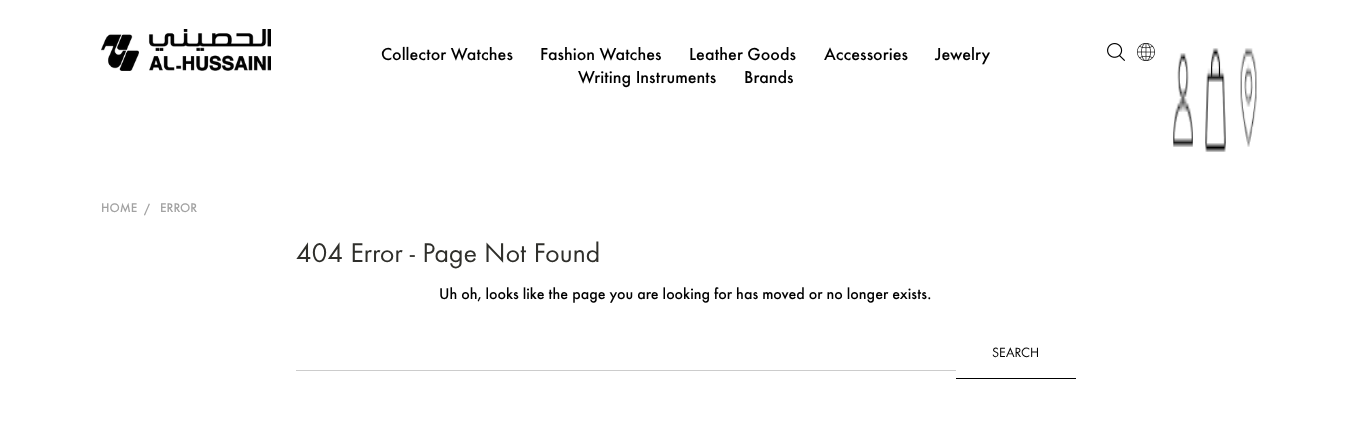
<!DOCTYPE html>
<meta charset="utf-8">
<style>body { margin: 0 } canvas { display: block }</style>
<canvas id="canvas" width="1371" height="446"></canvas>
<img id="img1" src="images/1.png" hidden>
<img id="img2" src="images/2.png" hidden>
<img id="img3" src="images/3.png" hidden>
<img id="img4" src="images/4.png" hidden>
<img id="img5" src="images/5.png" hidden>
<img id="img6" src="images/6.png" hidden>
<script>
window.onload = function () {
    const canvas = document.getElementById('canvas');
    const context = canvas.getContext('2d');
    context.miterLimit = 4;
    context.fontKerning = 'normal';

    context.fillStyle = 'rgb(255, 255, 255)';
    context.fillRect(0, 0, 1371, 446);
    context.drawImage(document.getElementById('img1'), 101, 29, 170, 42);
    context.drawImage(document.getElementById('img2'), 1107, 43, 18, 18);
    context.drawImage(document.getElementById('img3'), 1137, 43, 18, 18);
    context.drawImage(document.getElementById('img4'), 1173, 53, 20, 94);
    context.drawImage(document.getElementById('img5'), 1205, 48, 21, 104);
    context.drawImage(document.getElementById('img6'), 1240, 48, 17, 99);
    context.fillStyle = 'rgb(0, 0, 0)';
    context.fillRect(956, 378, 120, 1);
    context.fillStyle = 'rgb(204, 204, 204)';
    context.fillRect(296, 370, 660, 1);
    context.font = '500 18px Futura';
    context.fillStyle = 'rgb(0, 0, 0)';
    context.fillText('Collector Watches', 381, 60);
    context.fillText('Fashion Watches', 540, 60);
    context.fillText('Leather Goods', 689, 60);
    context.fillText('Accessories', 824, 60);
    context.fillText('Jewelry', 935, 60);
    context.fillText('Writing Instruments', 578, 83);
    context.fillText('Brands', 744, 83);
    context.font = '500 13px Futura';
    context.fillStyle = 'rgb(162, 162, 162)';
    context.fillText('HOME', 101, 212);
    context.fillText('/', 144, 213);
    context.fillText('ERROR', 160, 212);
    context.letterSpacing = '0.25px';
    context.font = '28px Futura';
    context.fillStyle = 'rgb(47, 47, 43)';
    context.fillText('404 Error - Page Not Found', 296, 262);
    context.letterSpacing = '0px';
    context.font = '500 16px Futura';
    context.fillStyle = 'rgb(0, 0, 0)';
    context.fillText('Uh oh, looks like the page you are looking for has moved or no longer exists.', 439, 299);
    context.font = '14px Futura';
    context.fillText('SEARCH', 992, 357);
};
</script>
